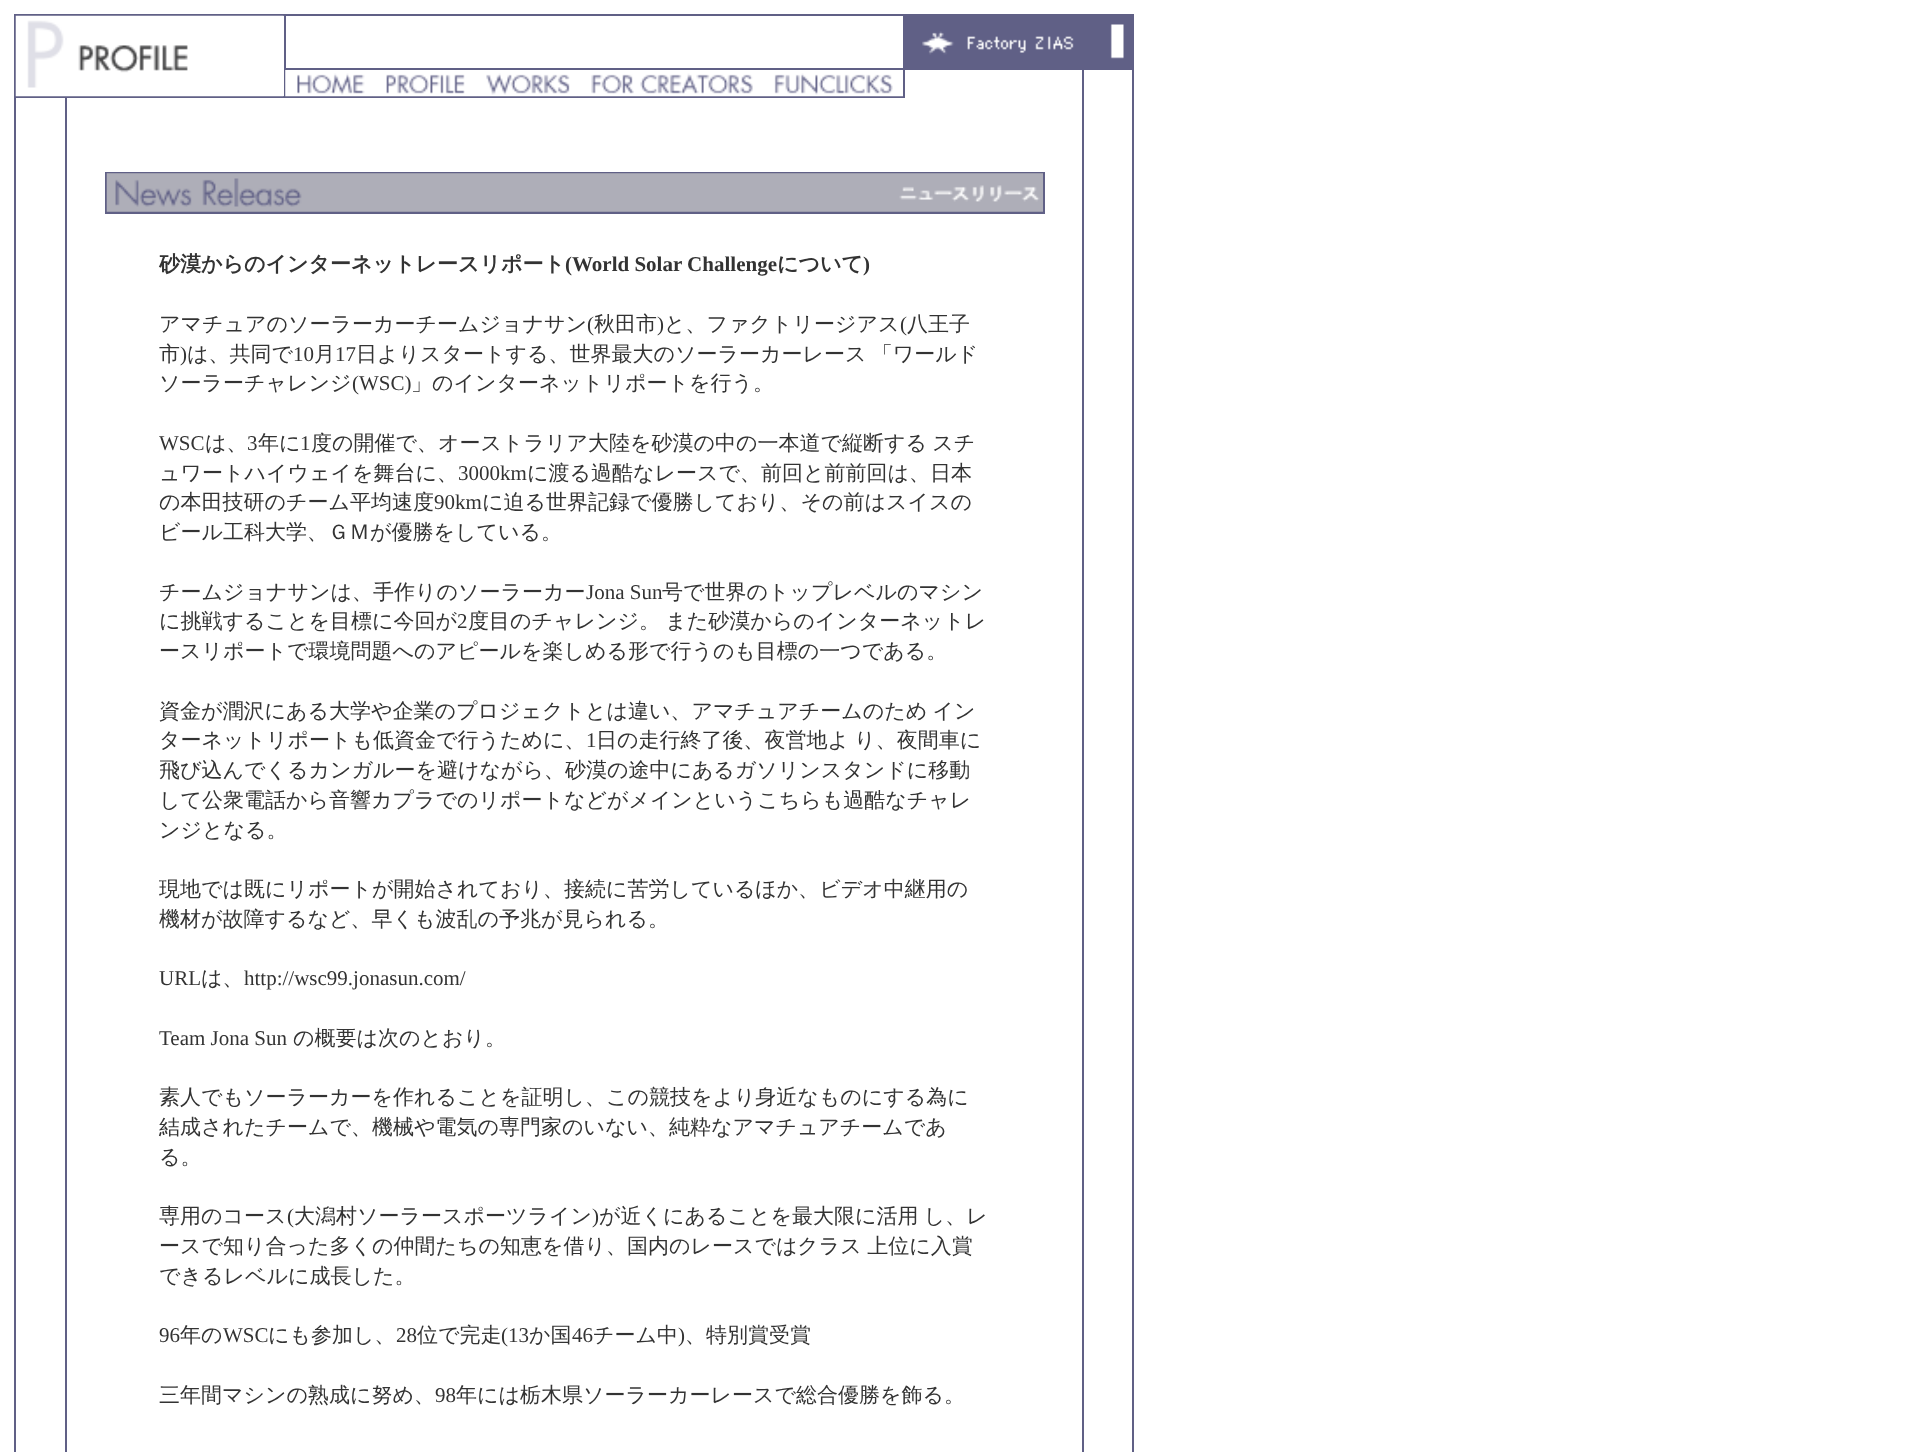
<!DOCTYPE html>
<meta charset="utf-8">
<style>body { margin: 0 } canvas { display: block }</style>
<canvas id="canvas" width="1911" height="1452"></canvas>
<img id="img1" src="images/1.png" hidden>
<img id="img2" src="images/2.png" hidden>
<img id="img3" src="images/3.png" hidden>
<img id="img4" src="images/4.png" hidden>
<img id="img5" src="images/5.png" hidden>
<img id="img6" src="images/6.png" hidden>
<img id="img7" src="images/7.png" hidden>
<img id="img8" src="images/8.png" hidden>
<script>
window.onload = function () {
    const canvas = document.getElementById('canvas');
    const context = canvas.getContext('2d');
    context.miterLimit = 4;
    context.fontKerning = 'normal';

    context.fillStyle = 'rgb(255, 255, 255)';
    context.fillRect(0, 0, 1911, 1452);
    context.fillStyle = 'rgb(96, 96, 134)';
    context.fillRect(14, 14, 2, 1438);
    context.fillRect(16, 14, 1116, 2);
    context.fillRect(1132, 14, 2, 1438);
    context.fillRect(16, 96, 889, 2);
    context.drawImage(document.getElementById('img1'), 15, 15, 269, 82);
    context.fillRect(284, 16, 2, 80);
    context.fillRect(903, 16, 229, 52);
    context.drawImage(document.getElementById('img2'), 922, 24, 202, 35);
    context.fillRect(285, 68, 847, 2);
    context.drawImage(document.getElementById('img3'), 285, 70, 88, 27);
    context.drawImage(document.getElementById('img4'), 372, 74, 106, 23);
    context.drawImage(document.getElementById('img5'), 477, 73, 101, 24);
    context.drawImage(document.getElementById('img6'), 577, 73, 186, 24);
    context.drawImage(document.getElementById('img7'), 763, 73, 140, 24);
    context.fillRect(903, 70, 2, 26);
    context.fillRect(1082, 70, 2, 1382);
    context.fillRect(65, 98, 2, 1354);
    context.fillRect(105, 172, 940, 42);
    context.drawImage(document.getElementById('img8'), 106, 173, 937, 39);
    context.font = 'bold 21px WenQuanYi Zen Hei';
    context.fillStyle = 'rgb(51, 51, 51)';
    context.fillText('砂漠からのインターネットレースリポート', 159, 271);
    context.font = 'bold 21px Liberation Serif';
    context.fillText('(World Solar Challenge', 565, 271);
    context.font = 'bold 21px WenQuanYi Zen Hei';
    context.fillText('について', 777, 271);
    context.font = 'bold 21px Liberation Serif';
    context.fillText(')', 863, 271);
    context.font = '500 21px WenQuanYi Zen Hei';
    context.fillText('アマチュアのソーラーカーチームジョナサン', 159, 331);
    context.font = '21px Liberation Serif';
    context.fillText('(', 587, 331);
    context.font = '500 21px WenQuanYi Zen Hei';
    context.fillText('秋田市', 594, 331);
    context.font = '21px Liberation Serif';
    context.fillText(')', 657, 331);
    context.font = '500 21px WenQuanYi Zen Hei';
    context.fillText('と、ファクトリージアス', 664, 331);
    context.font = '21px Liberation Serif';
    context.fillText('(', 900, 331);
    context.font = '500 21px WenQuanYi Zen Hei';
    context.fillText('八王子', 907, 331);
    context.fillText('市', 159, 361);
    context.font = '21px Liberation Serif';
    context.fillText(')', 180, 361);
    context.font = '500 21px WenQuanYi Zen Hei';
    context.fillText('は、共同で', 187, 361);
    context.font = '21px Liberation Serif';
    context.fillText('10', 293, 361);
    context.font = '500 21px WenQuanYi Zen Hei';
    context.fillText('月', 314, 361);
    context.font = '21px Liberation Serif';
    context.fillText('17', 335, 361);
    context.wordSpacing = '-1px';
    context.font = '500 21px WenQuanYi Zen Hei';
    context.fillText('日よりスタートする、世界最大のソーラーカーレース 「ワールド', 356, 361);
    context.wordSpacing = '0px';
    context.fillText('ソーラーチャレンジ', 159, 390);
    context.font = '21px Liberation Serif';
    context.fillText('(WSC)', 352, 390);
    context.font = '500 21px WenQuanYi Zen Hei';
    context.fillText('」のインターネットリポートを行う。', 411, 390);
    context.font = '21px Liberation Serif';
    context.fillText('WSC', 159, 450);
    context.font = '500 21px WenQuanYi Zen Hei';
    context.fillText('は、', 205, 450);
    context.font = '21px Liberation Serif';
    context.fillText('3', 247, 450);
    context.font = '500 21px WenQuanYi Zen Hei';
    context.fillText('年に', 258, 450);
    context.font = '21px Liberation Serif';
    context.fillText('1', 300, 450);
    context.wordSpacing = '-1px';
    context.font = '500 21px WenQuanYi Zen Hei';
    context.fillText('度の開催で、オーストラリア大陸を砂漠の中の一本道で縦断する スチ', 311, 450);
    context.wordSpacing = '0px';
    context.fillText('ュワートハイウェイを舞台に、', 159, 480);
    context.font = '21px Liberation Serif';
    context.fillText('3000km', 458, 480);
    context.font = '500 21px WenQuanYi Zen Hei';
    context.fillText('に渡る過酷なレースで、前回と前前回は、日本', 527, 480);
    context.fillText('の本田技研のチーム平均速度', 159, 509);
    context.font = '21px Liberation Serif';
    context.fillText('90km', 434, 509);
    context.font = '500 21px WenQuanYi Zen Hei';
    context.fillText('に迫る世界記録で優勝しており、その前はスイスの', 482, 509);
    context.fillText('ビール工科大学、ＧＭが優勝をしている。', 159, 539);
    context.fillText('チームジョナサンは、手作りのソーラーカー', 159, 599);
    context.font = '21px Liberation Serif';
    context.fillText('Jona Sun', 586, 599);
    context.font = '500 21px WenQuanYi Zen Hei';
    context.fillText('号で世界のトップレベルのマシン', 662, 599);
    context.fillText('に挑戦することを目標に今回が', 159, 628);
    context.font = '21px Liberation Serif';
    context.fillText('2', 457, 628);
    context.wordSpacing = '-1px';
    context.font = '500 21px WenQuanYi Zen Hei';
    context.fillText('度目のチャレンジ。 また砂漠からのインターネットレ', 468, 628);
    context.wordSpacing = '0px';
    context.fillText('ースリポートで環境問題へのアピールを楽しめる形で行うのも目標の一つである。', 159, 658);
    context.wordSpacing = '-1px';
    context.fillText('資金が潤沢にある大学や企業のプロジェクトとは違い、アマチュアチームのため イン', 159, 718);
    context.wordSpacing = '0px';
    context.fillText('ターネットリポートも低資金で行うために、', 159, 747);
    context.font = '21px Liberation Serif';
    context.fillText('1', 586, 747);
    context.wordSpacing = '-1px';
    context.font = '500 21px WenQuanYi Zen Hei';
    context.fillText('日の走行終了後、夜営地よ り、夜間車に', 596, 747);
    context.wordSpacing = '0px';
    context.fillText('飛び込んでくるカンガルーを避けながら、砂漠の途中にあるガソリンスタンドに移動', 159, 777);
    context.fillText('して公衆電話から音響カプラでのリポートなどがメインというこちらも過酷なチャレ', 159, 807);
    context.fillText('ンジとなる。', 159, 837);
    context.fillText('現地では既にリポートが開始されており、接続に苦労しているほか、ビデオ中継用の', 159, 896);
    context.fillText('機材が故障するなど、早くも波乱の予兆が見られる。', 159, 926);
    context.font = '21px Liberation Serif';
    context.fillText('URL', 159, 985);
    context.font = '500 21px WenQuanYi Zen Hei';
    context.fillText('は、', 201, 985);
    context.font = '21px Liberation Serif';
    context.fillText('http://wsc99.jonasun.com/', 244, 985);
    context.fillText('Team Jona Sun', 159, 1045);
    context.font = '500 21px WenQuanYi Zen Hei';
    context.fillText('の概要は次のとおり。', 293, 1045);
    context.fillText('素人でもソーラーカーを作れることを証明し、この競技をより身近なものにする為に', 159, 1104);
    context.fillText('結成されたチームで、機械や電気の専門家のいない、純粋なアマチュアチームであ', 159, 1134);
    context.fillText('る。', 159, 1164);
    context.fillText('専用のコース', 159, 1223);
    context.font = '21px Liberation Serif';
    context.fillText('(', 287, 1223);
    context.font = '500 21px WenQuanYi Zen Hei';
    context.fillText('大潟村ソーラースポーツライン', 294, 1223);
    context.font = '21px Liberation Serif';
    context.fillText(')', 592, 1223);
    context.wordSpacing = '-1px';
    context.font = '500 21px WenQuanYi Zen Hei';
    context.fillText('が近くにあることを最大限に活用 し、レ', 599, 1223);
    context.fillText('ースで知り合った多くの仲間たちの知恵を借り、国内のレースではクラス 上位に入賞', 159, 1253);
    context.wordSpacing = '0px';
    context.fillText('できるレベルに成長した。', 159, 1283);
    context.font = '21px Liberation Serif';
    context.fillText('96', 159, 1342);
    context.font = '500 21px WenQuanYi Zen Hei';
    context.fillText('年の', 180, 1342);
    context.font = '21px Liberation Serif';
    context.fillText('WSC', 223, 1342);
    context.font = '500 21px WenQuanYi Zen Hei';
    context.fillText('にも参加し、', 268, 1342);
    context.font = '21px Liberation Serif';
    context.fillText('28', 396, 1342);
    context.font = '500 21px WenQuanYi Zen Hei';
    context.fillText('位で完走', 417, 1342);
    context.font = '21px Liberation Serif';
    context.fillText('(13', 501, 1342);
    context.font = '500 21px WenQuanYi Zen Hei';
    context.fillText('か国', 529, 1342);
    context.font = '21px Liberation Serif';
    context.fillText('46', 572, 1342);
    context.font = '500 21px WenQuanYi Zen Hei';
    context.fillText('チーム中', 593, 1342);
    context.font = '21px Liberation Serif';
    context.fillText(')', 678, 1342);
    context.font = '500 21px WenQuanYi Zen Hei';
    context.fillText('、特別賞受賞', 685, 1342);
    context.fillText('三年間マシンの熟成に努め、', 159, 1402);
    context.font = '21px Liberation Serif';
    context.fillText('98', 435, 1402);
    context.font = '500 21px WenQuanYi Zen Hei';
    context.fillText('年には栃木県ソーラーカーレースで総合優勝を飾る。', 456, 1402);
};
</script>
